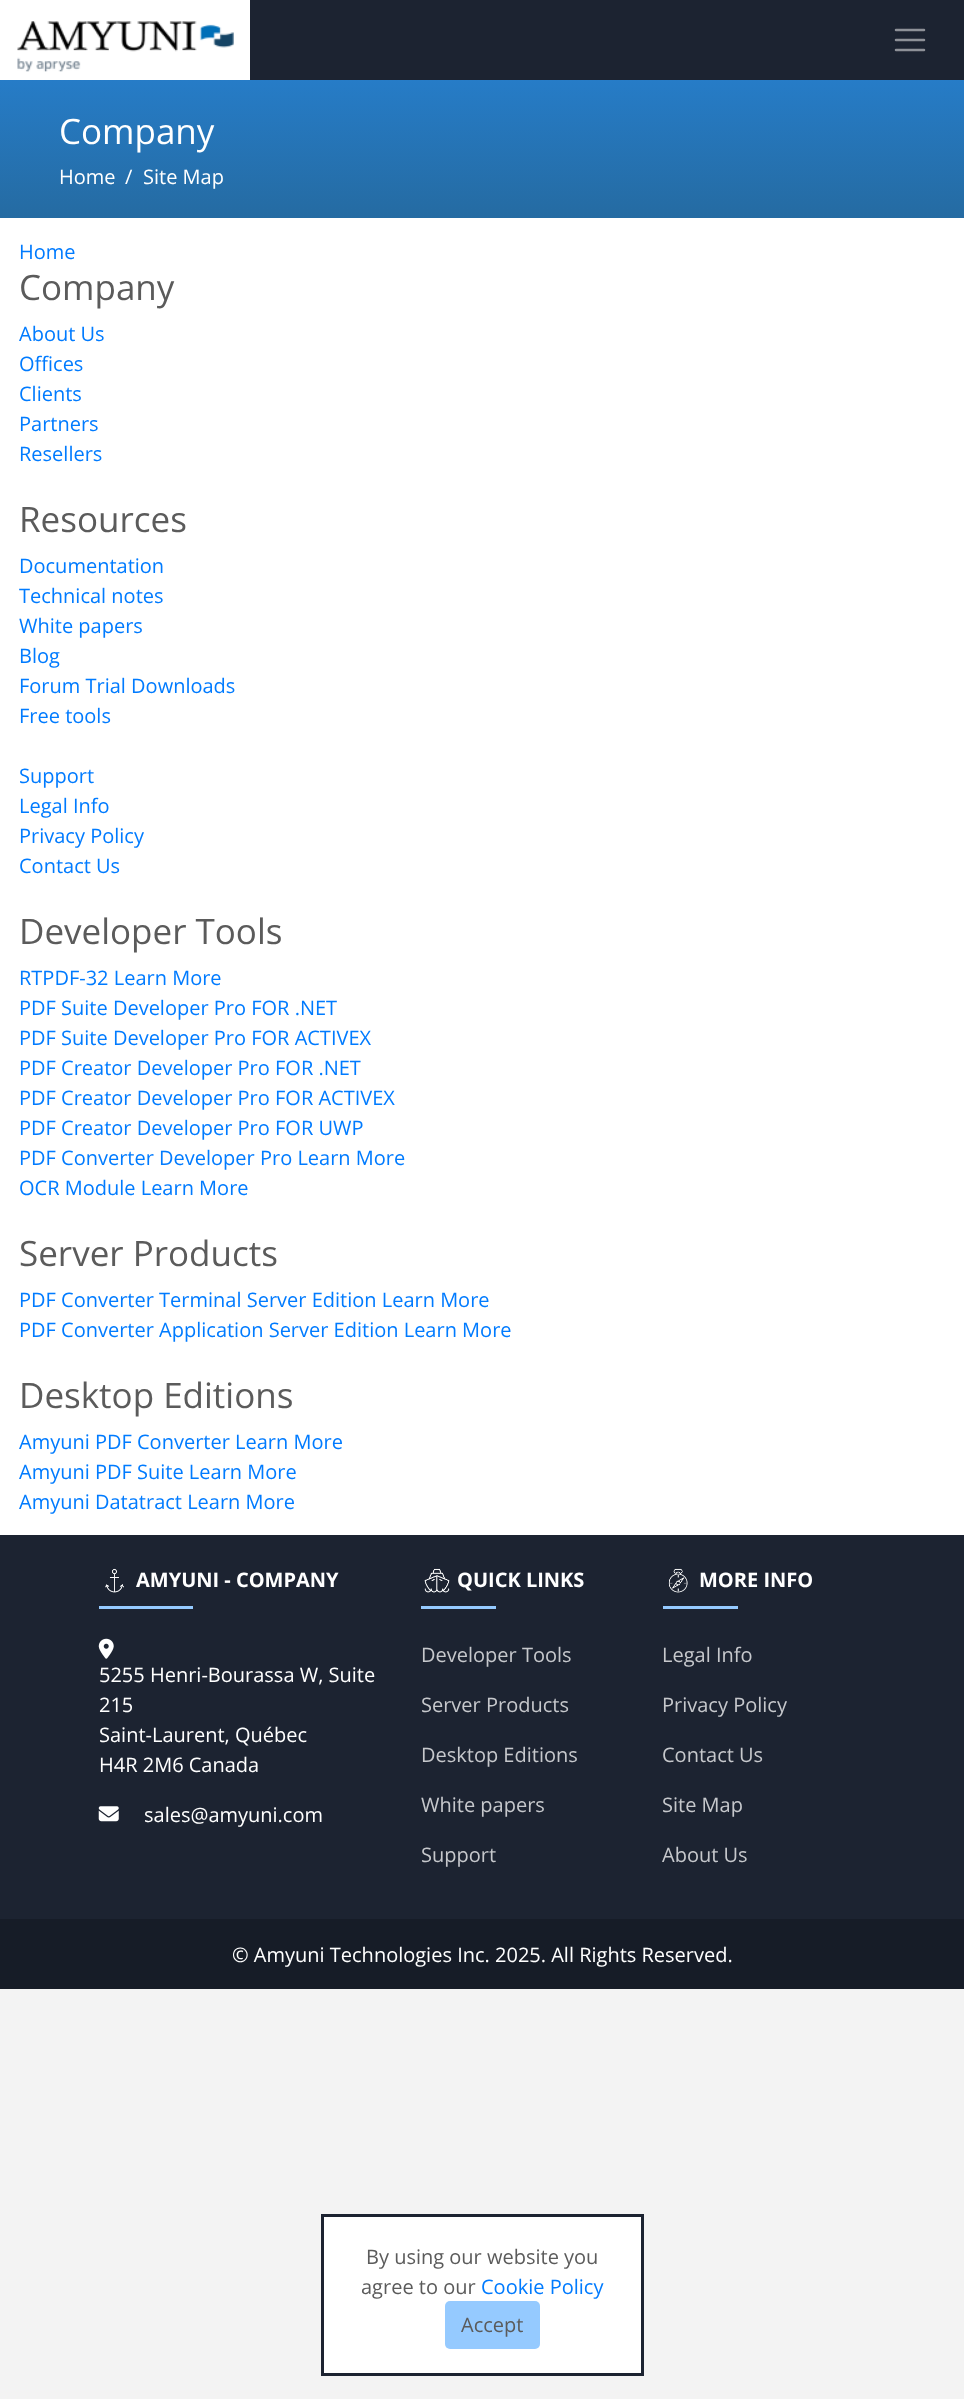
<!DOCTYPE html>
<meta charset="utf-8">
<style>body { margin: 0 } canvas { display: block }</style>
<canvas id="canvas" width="964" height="2399"></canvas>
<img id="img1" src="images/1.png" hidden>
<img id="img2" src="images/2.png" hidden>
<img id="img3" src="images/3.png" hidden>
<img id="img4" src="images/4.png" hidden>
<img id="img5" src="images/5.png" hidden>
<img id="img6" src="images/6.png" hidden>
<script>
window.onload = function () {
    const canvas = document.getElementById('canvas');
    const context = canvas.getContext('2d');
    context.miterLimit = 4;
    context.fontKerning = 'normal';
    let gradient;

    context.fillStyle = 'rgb(243, 243, 243)';
    context.fillRect(0, 0, 964, 2399);
    context.fillStyle = 'rgb(28, 35, 49)';
    context.fillRect(250, 0, 714, 80);
    context.drawImage(document.getElementById('img1'), 0, 0, 250, 80);
    context.beginPath();
    context.moveTo(896, 30);
    context.lineTo(924, 30);
    context.moveTo(896, 40);
    context.lineTo(924, 40);
    context.moveTo(896, 50);
    context.lineTo(924, 50);
    context.strokeStyle = 'rgb(142, 145, 152)';
    context.lineWidth = 2.5;
    context.lineCap = 'round';
    context.stroke();
    gradient = context.createLinearGradient(483, 80, 483, 218);
    gradient.addColorStop(0, 'rgb(38, 124, 199)');
    gradient.addColorStop(1, 'rgb(37, 107, 162)');
    context.fillStyle = gradient;
    context.fillRect(0, 80, 964, 138);
    context.fillStyle = 'rgb(255, 255, 255)';
    context.fillRect(0, 218, 964, 1317);
    context.beginPath();
    context.rect(322.5, 2215.5, 320, 159);
    context.fill();
    context.strokeStyle = 'rgb(28, 35, 49)';
    context.lineWidth = 3;
    context.stroke();
    context.fillStyle = 'rgb(149, 202, 255)';
    context.beginPath();
    context.roundRect(445, 2301, 95, 48, 5);
    context.fill();
    context.fillStyle = 'rgb(28, 35, 49)';
    context.fillRect(0, 1535, 964, 384);
    context.drawImage(document.getElementById('img2'), 105, 1568, 19, 25);
    context.fillStyle = 'rgb(149, 202, 255)';
    context.fillRect(99, 1606, 94, 3);
    context.drawImage(document.getElementById('img3'), 98, 1638, 16, 21);
    context.drawImage(document.getElementById('img4'), 98, 1806, 21, 16);
    context.drawImage(document.getElementById('img5'), 424, 1568, 26, 25);
    context.fillRect(421, 1606, 75, 3);
    context.drawImage(document.getElementById('img6'), 668, 1568, 20, 25);
    context.fillRect(663, 1606, 75, 3);
    context.fillStyle = 'rgb(22, 28, 39)';
    context.fillRect(0, 1919, 964, 70);
    context.font = '35px Open Sans';
    context.fillStyle = 'rgb(255, 255, 255)';
    context.fillText('Company', 59, 144);
    context.font = '20px Open Sans';
    context.fillText('Home', 59, 184);
    context.fillText('/', 125, 184);
    context.fillText('Site Map', 143, 184);
    context.fillStyle = 'rgb(0, 123, 255)';
    context.fillText('Home', 19, 259);
    context.font = '35px Open Sans';
    context.fillStyle = 'rgb(91, 91, 91)';
    context.fillText('Company', 19, 300);
    context.font = '20px Open Sans';
    context.fillStyle = 'rgb(0, 123, 255)';
    context.fillText('About Us', 19, 341);
    context.fillText('Offices', 19, 371);
    context.fillText('Clients', 19, 401);
    context.fillText('Partners', 19, 431);
    context.fillText('Resellers', 19, 461);
    context.font = '35px Open Sans';
    context.fillStyle = 'rgb(91, 91, 91)';
    context.fillText('Resources', 19, 532);
    context.font = '20px Open Sans';
    context.fillStyle = 'rgb(0, 123, 255)';
    context.fillText('Documentation', 19, 573);
    context.fillText('Technical notes', 19, 603);
    context.fillText('White papers', 19, 633);
    context.fillText('Blog', 19, 663);
    context.fillText('Forum Trial Downloads', 19, 693);
    context.fillText('Free tools', 19, 723);
    context.fillText('Support', 19, 783);
    context.fillText('Legal Info', 19, 813);
    context.fillText('Privacy Policy', 19, 843);
    context.fillText('Contact Us', 19, 873);
    context.font = '35px Open Sans';
    context.fillStyle = 'rgb(91, 91, 91)';
    context.fillText('Developer Tools', 19, 944);
    context.font = '20px Open Sans';
    context.fillStyle = 'rgb(0, 123, 255)';
    context.fillText('RTPDF-32 Learn More', 19, 985);
    context.fillText('PDF Suite Developer Pro FOR .NET', 19, 1015);
    context.fillText('PDF Suite Developer Pro FOR ACTIVEX', 19, 1045);
    context.fillText('PDF Creator Developer Pro FOR .NET', 19, 1075);
    context.fillText('PDF Creator Developer Pro FOR ACTIVEX', 19, 1105);
    context.fillText('PDF Creator Developer Pro FOR UWP', 19, 1135);
    context.fillText('PDF Converter Developer Pro Learn More', 19, 1165);
    context.fillText('OCR Module Learn More', 19, 1195);
    context.font = '35px Open Sans';
    context.fillStyle = 'rgb(91, 91, 91)';
    context.fillText('Server Products', 19, 1266);
    context.font = '20px Open Sans';
    context.fillStyle = 'rgb(0, 123, 255)';
    context.fillText('PDF Converter Terminal Server Edition Learn More', 19, 1307);
    context.fillText('PDF Converter Application Server Edition Learn More', 19, 1337);
    context.font = '35px Open Sans';
    context.fillStyle = 'rgb(91, 91, 91)';
    context.fillText('Desktop Editions', 19, 1408);
    context.font = '20px Open Sans';
    context.fillStyle = 'rgb(0, 123, 255)';
    context.fillText('Amyuni PDF Converter Learn More', 19, 1449);
    context.fillText('Amyuni PDF Suite Learn More', 19, 1479);
    context.fillText('Amyuni Datatract Learn More', 19, 1509);
    context.fillStyle = 'rgb(91, 91, 91)';
    context.fillText('By using our website you', 366, 2264);
    context.fillText('agree to our', 361, 2294);
    context.fillStyle = 'rgb(0, 123, 255)';
    context.fillText('Cookie Policy', 481, 2294);
    context.fillStyle = 'rgb(91, 91, 91)';
    context.fillText('Accept', 461, 2332);
    context.font = 'bold 20px Open Sans';
    context.fillStyle = 'rgb(255, 255, 255)';
    context.fillText('AMYUNI - COMPANY', 136, 1587);
    context.font = '20px Open Sans';
    context.fillText('5255 Henri-Bourassa W, Suite', 99, 1682);
    context.fillText('215', 99, 1712);
    context.fillText('Saint-Laurent, Québec', 99, 1742);
    context.fillText('H4R 2M6 Canada', 99, 1772);
    context.fillText('sales@amyuni.com', 144, 1822);
    context.font = 'bold 20px Open Sans';
    context.fillText('QUICK LINKS', 457, 1587);
    context.font = '20px Open Sans';
    context.fillStyle = 'rgb(198, 200, 204)';
    context.fillText('Developer Tools', 421, 1662);
    context.fillText('Server Products', 421, 1712);
    context.fillText('Desktop Editions', 421, 1762);
    context.fillText('White papers', 421, 1812);
    context.fillText('Support', 421, 1862);
    context.font = 'bold 20px Open Sans';
    context.fillStyle = 'rgb(255, 255, 255)';
    context.fillText('MORE INFO', 699, 1587);
    context.font = '20px Open Sans';
    context.fillStyle = 'rgb(198, 200, 204)';
    context.fillText('Legal Info', 662, 1662);
    context.fillText('Privacy Policy', 662, 1712);
    context.fillText('Contact Us', 662, 1762);
    context.fillText('Site Map', 662, 1812);
    context.fillText('About Us', 662, 1862);
    context.fillStyle = 'rgb(255, 255, 255)';
    context.fillText('© Amyuni Technologies Inc. 2025. All Rights Reserved.', 232, 1962);
};
</script>
